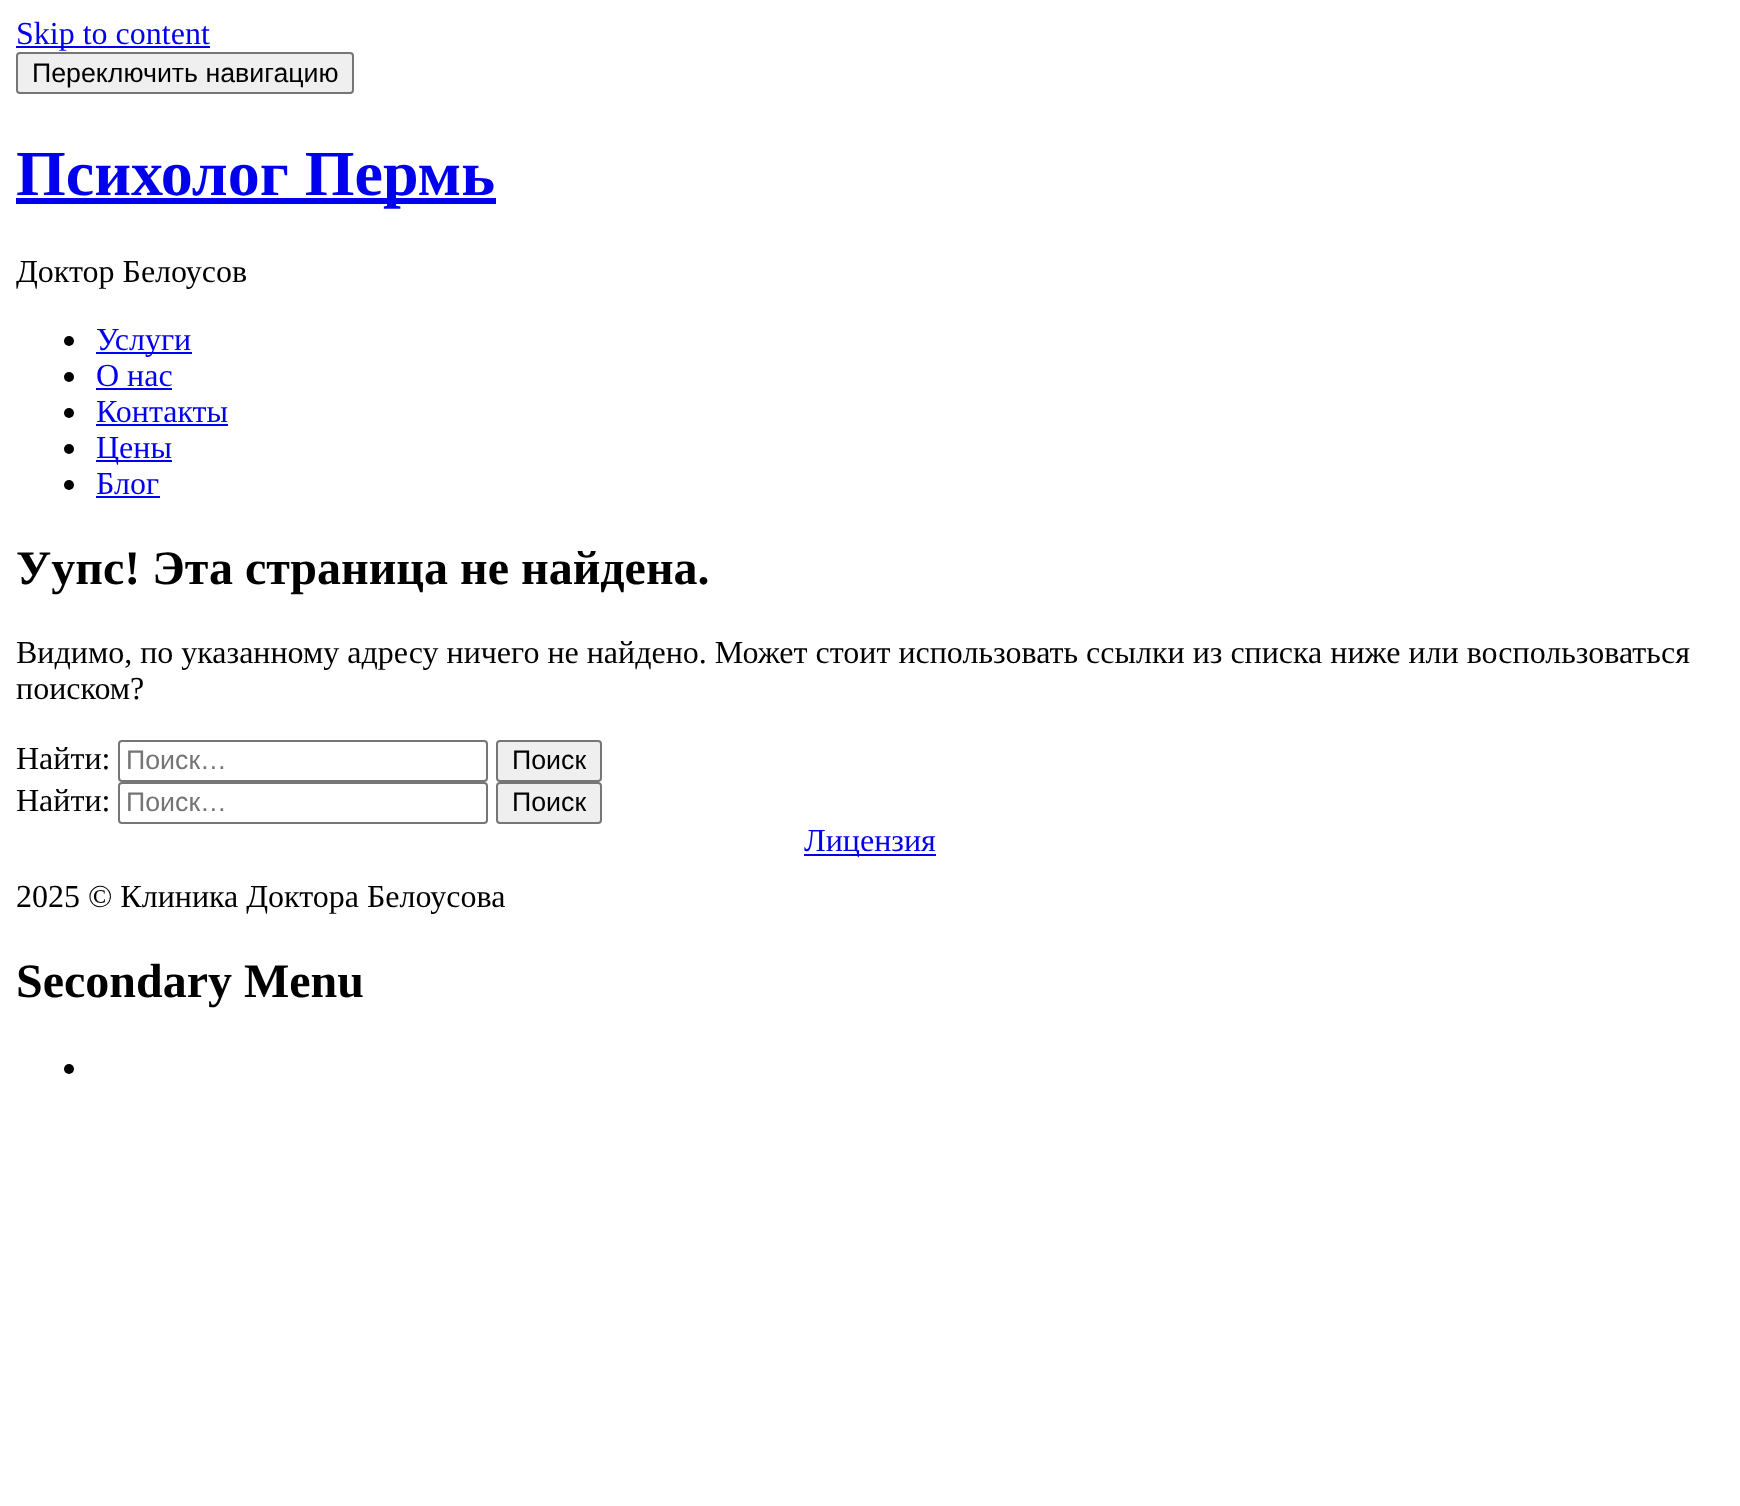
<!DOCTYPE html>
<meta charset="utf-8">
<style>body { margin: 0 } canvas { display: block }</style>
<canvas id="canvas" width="1740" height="1506"></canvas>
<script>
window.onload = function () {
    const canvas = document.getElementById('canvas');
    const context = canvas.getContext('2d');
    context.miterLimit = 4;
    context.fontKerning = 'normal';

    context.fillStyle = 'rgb(255, 255, 255)';
    context.fillRect(0, 0, 1740, 1506);
    context.fillStyle = 'rgb(0, 0, 238)';
    context.fillRect(16, 46, 194, 2);
    context.fillStyle = 'rgb(239, 239, 239)';
    context.beginPath();
    context.roundRect(17, 53, 336, 40, 3);
    context.fill();
    context.strokeStyle = 'rgb(118, 118, 118)';
    context.lineWidth = 2;
    context.stroke();
    context.fillStyle = 'rgb(0, 0, 238)';
    context.fillRect(16, 198, 480, 6);
    context.fillStyle = 'rgb(0, 0, 0)';
    context.beginPath();
    context.arc(69, 341, 5, 0, 2 * Math.PI);
    context.fill();
    context.fillStyle = 'rgb(0, 0, 238)';
    context.fillRect(96, 352, 96, 2);
    context.fillStyle = 'rgb(0, 0, 0)';
    context.beginPath();
    context.arc(69, 377, 5, 0, 2 * Math.PI);
    context.fill();
    context.fillStyle = 'rgb(0, 0, 238)';
    context.fillRect(96, 388, 76, 2);
    context.fillStyle = 'rgb(0, 0, 0)';
    context.beginPath();
    context.arc(69, 413, 5, 0, 2 * Math.PI);
    context.fill();
    context.fillStyle = 'rgb(0, 0, 238)';
    context.fillRect(96, 424, 132, 2);
    context.fillStyle = 'rgb(0, 0, 0)';
    context.beginPath();
    context.arc(69, 449, 5, 0, 2 * Math.PI);
    context.fill();
    context.fillStyle = 'rgb(0, 0, 238)';
    context.fillRect(96, 460, 76, 2);
    context.fillStyle = 'rgb(0, 0, 0)';
    context.beginPath();
    context.arc(69, 485, 5, 0, 2 * Math.PI);
    context.fill();
    context.fillStyle = 'rgb(0, 0, 238)';
    context.fillRect(96, 496, 64, 2);
    context.beginPath();
    context.roundRect(119, 741, 368, 40, 3);
    context.stroke();
    context.fillStyle = 'rgb(239, 239, 239)';
    context.beginPath();
    context.roundRect(497, 741, 104, 40, 3);
    context.fill();
    context.stroke();
    context.beginPath();
    context.roundRect(119, 783, 368, 40, 3);
    context.stroke();
    context.beginPath();
    context.roundRect(497, 783, 104, 40, 3);
    context.fill();
    context.stroke();
    context.fillStyle = 'rgb(0, 0, 238)';
    context.fillRect(804, 854, 132, 2);
    context.fillStyle = 'rgb(0, 0, 0)';
    context.beginPath();
    context.arc(69, 1069, 5, 0, 2 * Math.PI);
    context.fill();
    context.font = '32px Liberation Serif';
    context.fillStyle = 'rgb(0, 0, 238)';
    context.fillText('Skip to content', 16, 44);
    context.font = '26.75px Liberation Sans';
    context.fillStyle = 'rgb(0, 0, 0)';
    context.fillText('Переключить навигацию', 32, 82);
    context.font = 'bold 64px Liberation Serif';
    context.fillStyle = 'rgb(0, 0, 238)';
    context.fillText('Психолог Пермь', 16, 195);
    context.font = '32px Liberation Serif';
    context.fillStyle = 'rgb(0, 0, 0)';
    context.fillText('Доктор Белоусов', 16, 282);
    context.fillStyle = 'rgb(0, 0, 238)';
    context.fillText('Услуги', 96, 350);
    context.fillText('О нас', 96, 386);
    context.fillText('Контакты', 96, 422);
    context.fillText('Цены', 96, 458);
    context.fillText('Блог', 96, 494);
    context.font = 'bold 48px Liberation Serif';
    context.fillStyle = 'rgb(0, 0, 0)';
    context.fillText('Уупс! Эта страница не найдена.', 16, 584);
    context.font = '32px Liberation Serif';
    context.fillText('Видимо, по указанному адресу ничего не найдено. Может стоит использовать ссылки из списка ниже или воспользоваться', 16, 663);
    context.fillText('поиском?', 16, 699);
    context.fillText('Найти:', 16, 769);
    context.font = '26.75px Liberation Sans';
    context.fillStyle = 'rgb(117, 117, 117)';
    context.fillText('Поиск…', 126, 769);
    context.fillStyle = 'rgb(0, 0, 0)';
    context.fillText('Поиск', 512, 769);
    context.font = '32px Liberation Serif';
    context.fillText('Найти:', 16, 811);
    context.font = '26.75px Liberation Sans';
    context.fillStyle = 'rgb(117, 117, 117)';
    context.fillText('Поиск…', 126, 811);
    context.fillStyle = 'rgb(0, 0, 0)';
    context.fillText('Поиск', 512, 811);
    context.font = '32px Liberation Serif';
    context.fillStyle = 'rgb(0, 0, 238)';
    context.fillText('Лицензия', 804, 851);
    context.fillStyle = 'rgb(0, 0, 0)';
    context.fillText('2025 © Клиника Доктора Белоусова', 16, 907);
    context.font = 'bold 48px Liberation Serif';
    context.fillText('Secondary Menu', 16, 997);
};
</script>
